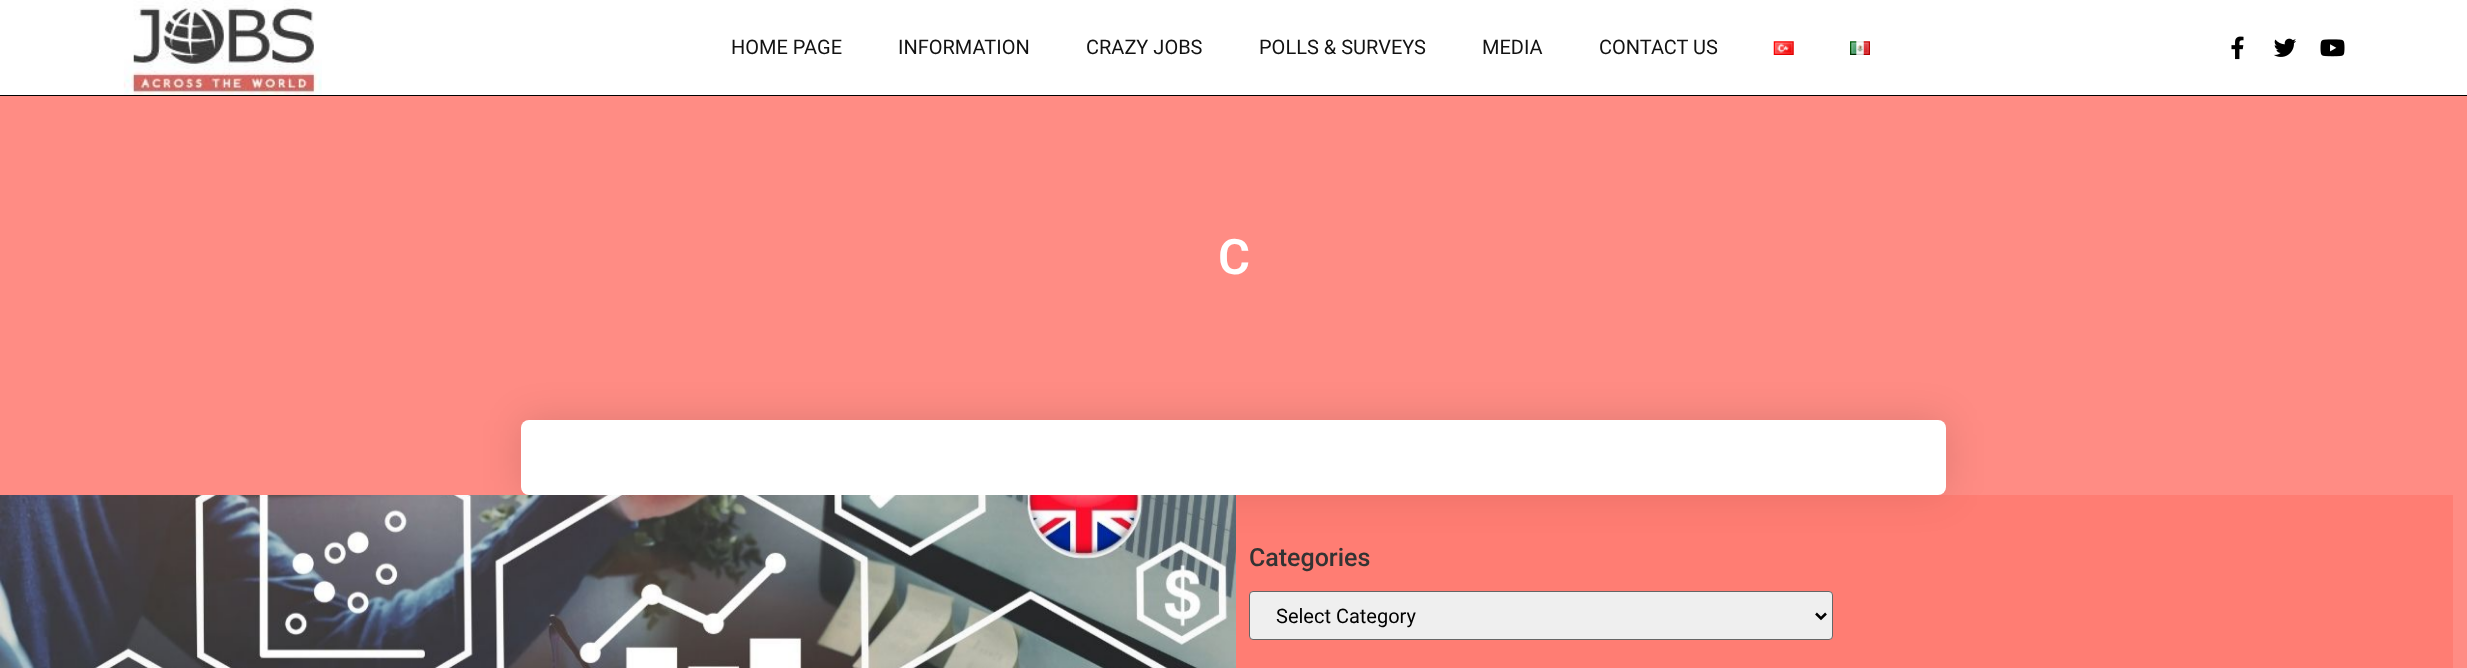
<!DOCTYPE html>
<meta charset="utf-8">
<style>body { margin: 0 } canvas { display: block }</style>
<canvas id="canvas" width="2467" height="668"></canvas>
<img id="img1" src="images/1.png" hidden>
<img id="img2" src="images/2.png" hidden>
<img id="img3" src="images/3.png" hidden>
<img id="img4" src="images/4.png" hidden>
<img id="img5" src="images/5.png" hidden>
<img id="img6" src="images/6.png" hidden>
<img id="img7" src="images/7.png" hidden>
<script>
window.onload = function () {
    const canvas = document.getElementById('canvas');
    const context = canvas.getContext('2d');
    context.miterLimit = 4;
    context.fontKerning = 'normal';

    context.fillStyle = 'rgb(255, 255, 255)';
    context.fillRect(0, 0, 2467, 668);
    context.fillStyle = 'rgb(0, 0, 0)';
    context.fillRect(0, 95, 2467, 1);
    context.drawImage(document.getElementById('img1'), 123, 0, 199, 95);
    context.drawImage(document.getElementById('img2'), 1773, 41, 21, 14);
    context.drawImage(document.getElementById('img3'), 1850, 41, 20, 14);
    context.drawImage(document.getElementById('img4'), 2231, 36, 13, 24);
    context.drawImage(document.getElementById('img5'), 2273, 38, 23, 19);
    context.drawImage(document.getElementById('img6'), 2320, 39, 25, 18);
    context.fillStyle = 'rgb(255, 140, 132)';
    context.fillRect(0, 96, 2467, 572);
    context.fillStyle = 'rgba(0, 0, 0, 0.13)';
    context.filter = 'blur(19px)';
    context.beginPath();
    context.roundRect(521, 420, 1425, 75, 8);
    context.fill();
    context.filter = 'none';
    context.fillStyle = 'rgb(255, 255, 255)';
    context.beginPath();
    context.roundRect(521, 420, 1425, 75, 8);
    context.fill();
    context.drawImage(document.getElementById('img7'), 0, 495, 1236, 173);
    context.fillStyle = 'rgba(255, 86, 73, 0.28)';
    context.fillRect(1236, 495, 1217, 173);
    context.fillStyle = 'rgb(239, 239, 239)';
    context.beginPath();
    context.roundRect(1249.5, 591.5, 583, 48, 3.5);
    context.fill();
    context.strokeStyle = 'rgb(102, 102, 102)';
    context.stroke();
    context.beginPath();
    context.moveTo(1816, 613.5);
    context.lineTo(1821, 618.5);
    context.lineTo(1826, 613.5);
    context.strokeStyle = 'rgb(0, 0, 0)';
    context.lineWidth = 2.5;
    context.stroke();
    context.font = '20px Roboto';
    context.fillStyle = 'rgb(18, 18, 18)';
    context.fillText('HOME PAGE', 731, 54);
    context.fillText('INFORMATION', 898, 54);
    context.fillText('CRAZY JOBS', 1086, 54);
    context.fillText('POLLS & SURVEYS', 1259, 54);
    context.fillText('MEDIA', 1482, 54);
    context.fillText('CONTACT US', 1599, 54);
    context.font = '600 49px Roboto';
    context.fillStyle = 'rgb(255, 255, 255)';
    context.fillText('C', 1218, 274);
    context.font = '500 25px Roboto';
    context.fillStyle = 'rgb(51, 51, 51)';
    context.fillText('Categories', 1249, 566);
    context.font = '20px Roboto';
    context.fillStyle = 'rgb(0, 0, 0)';
    context.fillText('Select Category', 1276, 623);
};
</script>
